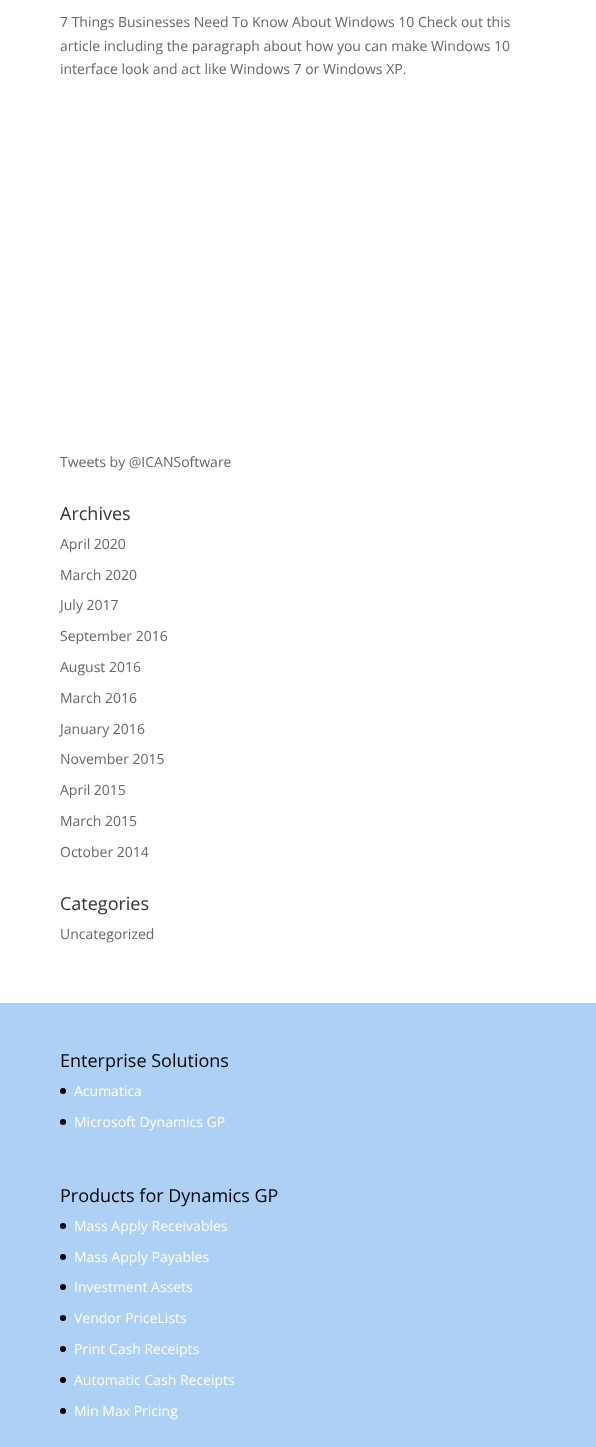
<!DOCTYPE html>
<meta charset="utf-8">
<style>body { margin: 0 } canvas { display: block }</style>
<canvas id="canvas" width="596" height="1447"></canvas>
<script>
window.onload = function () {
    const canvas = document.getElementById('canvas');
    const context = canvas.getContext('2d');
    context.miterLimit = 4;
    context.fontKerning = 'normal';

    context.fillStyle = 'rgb(255, 255, 255)';
    context.fillRect(0, 0, 596, 1447);
    context.fillStyle = 'rgb(174, 208, 244)';
    context.fillRect(0, 1003, 596, 444);
    context.fillStyle = 'rgb(0, 0, 0)';
    context.beginPath();
    context.arc(63, 1091, 3, 0, 2 * Math.PI);
    context.fill();
    context.beginPath();
    context.arc(63, 1122, 3, 0, 2 * Math.PI);
    context.fill();
    context.beginPath();
    context.arc(63, 1226, 3, 0, 2 * Math.PI);
    context.fill();
    context.beginPath();
    context.arc(63, 1257, 3, 0, 2 * Math.PI);
    context.fill();
    context.beginPath();
    context.arc(63, 1287, 3, 0, 2 * Math.PI);
    context.fill();
    context.beginPath();
    context.arc(63, 1318, 3, 0, 2 * Math.PI);
    context.fill();
    context.beginPath();
    context.arc(63, 1349, 3, 0, 2 * Math.PI);
    context.fill();
    context.beginPath();
    context.arc(63, 1380, 3, 0, 2 * Math.PI);
    context.fill();
    context.beginPath();
    context.arc(63, 1411, 3, 0, 2 * Math.PI);
    context.fill();
    context.font = '14px Open Sans';
    context.fillStyle = 'rgb(102, 102, 102)';
    context.fillText('7 Things Businesses Need To Know About Windows 10 Check out this', 60, 27);
    context.fillText('article including the paragraph about how you can make Windows 10', 60, 51);
    context.fillText('interface look and act like Windows 7 or Windows XP.', 60, 74);
    context.fillText('Tweets by @ICANSoftware', 60, 467);
    context.font = '18px Open Sans';
    context.fillStyle = 'rgb(51, 51, 51)';
    context.fillText('Archives', 60, 520);
    context.font = '14px Open Sans';
    context.fillStyle = 'rgb(102, 102, 102)';
    context.fillText('April 2020', 60, 549);
    context.fillText('March 2020', 60, 580);
    context.fillText('July 2017', 60, 610);
    context.fillText('September 2016', 60, 641);
    context.fillText('August 2016', 60, 672);
    context.fillText('March 2016', 60, 703);
    context.fillText('January 2016', 60, 734);
    context.fillText('November 2015', 60, 764);
    context.fillText('April 2015', 60, 795);
    context.fillText('March 2015', 60, 826);
    context.fillText('October 2014', 60, 857);
    context.font = '18px Open Sans';
    context.fillStyle = 'rgb(51, 51, 51)';
    context.fillText('Categories', 60, 910);
    context.font = '14px Open Sans';
    context.fillStyle = 'rgb(102, 102, 102)';
    context.fillText('Uncategorized', 60, 939);
    context.font = '18px Open Sans';
    context.fillStyle = 'rgb(0, 0, 0)';
    context.fillText('Enterprise Solutions', 60, 1067);
    context.font = '14px Open Sans';
    context.fillStyle = 'rgb(255, 255, 255)';
    context.fillText('Acumatica', 74, 1096);
    context.fillText('Microsoft Dynamics GP', 74, 1127);
    context.font = '18px Open Sans';
    context.fillStyle = 'rgb(0, 0, 0)';
    context.fillText('Products for Dynamics GP', 60, 1202);
    context.font = '14px Open Sans';
    context.fillStyle = 'rgb(255, 255, 255)';
    context.fillText('Mass Apply Receivables', 74, 1231);
    context.fillText('Mass Apply Payables', 74, 1262);
    context.fillText('Investment Assets', 74, 1292);
    context.fillText('Vendor PriceLists', 74, 1323);
    context.fillText('Print Cash Receipts', 74, 1354);
    context.fillText('Automatic Cash Receipts', 74, 1385);
    context.fillText('Min Max Pricing', 74, 1416);
};
</script>
